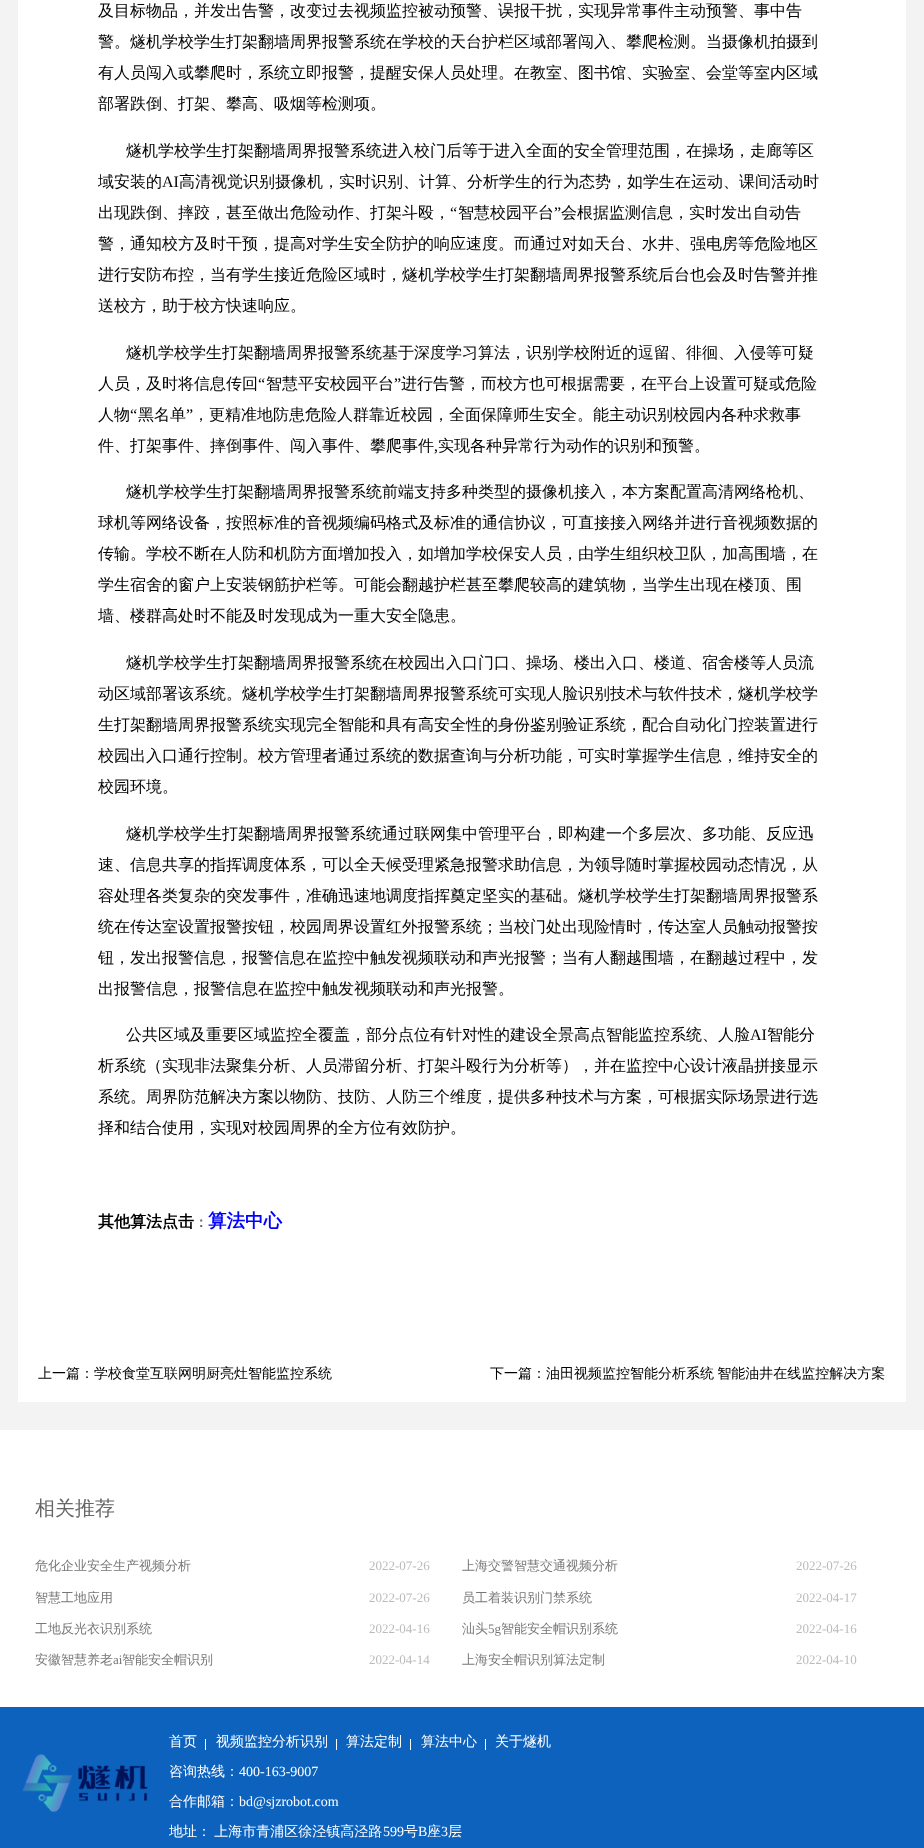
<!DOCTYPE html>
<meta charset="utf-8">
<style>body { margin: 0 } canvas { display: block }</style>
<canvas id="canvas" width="924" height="1848"></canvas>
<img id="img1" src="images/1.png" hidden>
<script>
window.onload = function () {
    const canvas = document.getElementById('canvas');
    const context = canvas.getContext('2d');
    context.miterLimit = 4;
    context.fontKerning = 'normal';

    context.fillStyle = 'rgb(255, 255, 255)';
    context.fillRect(0, 0, 924, 1848);
    context.fillStyle = 'rgb(243, 243, 243)';
    context.fillRect(0, 0, 924, 1430);
    context.fillStyle = 'rgb(255, 255, 255)';
    context.fillRect(18, 0, 888, 1402);
    context.fillStyle = 'rgb(13, 98, 190)';
    context.fillRect(0, 1707, 924, 141);
    context.drawImage(document.getElementById('img1'), 22, 1754, 126, 58);
    context.fillStyle = 'rgb(255, 255, 255)';
    context.fillRect(205, 1739, 1, 11);
    context.fillRect(336, 1739, 1, 11);
    context.fillRect(410, 1739, 1, 11);
    context.fillRect(485, 1739, 1, 11);
    context.font = '500 16px WenQuanYi Zen Hei';
    context.fillStyle = 'rgb(0, 0, 0)';
    context.fillText('及目标物品，并发出告警，改变过去视频监控被动预警、误报干扰，实现异常事件主动预警、事中告', 98, 16);
    context.fillText('警。燧机学校学生打架翻墙周界报警系统在学校的天台护栏区域部署闯入、攀爬检测。当摄像机拍摄到', 98, 47);
    context.fillText('有人员闯入或攀爬时，系统立即报警，提醒安保人员处理。在教室、图书馆、实验室、会堂等室内区域', 98, 78);
    context.fillText('部署跌倒、打架、攀高、吸烟等检测项。', 98, 109);
    context.fillText('燧机学校学生打架翻墙周界报警系统进入校门后等于进入全面的安全管理范围，在操场，走廊等区', 126, 156);
    context.fillText('域安装的', 98, 187);
    context.font = '16px Liberation Serif';
    context.fillText('AI', 162, 187);
    context.font = '500 16px WenQuanYi Zen Hei';
    context.fillText('高清视觉识别摄像机，实时识别、计算、分析学生的行为态势，如学生在运动、课间活动时', 179, 187);
    context.fillText('出现跌倒、摔跤，甚至做出危险动作、打架斗殴，', 98, 218);
    context.font = '16px Liberation Serif';
    context.fillText('“', 450, 218);
    context.font = '500 16px WenQuanYi Zen Hei';
    context.fillText('智慧校园平台', 458, 218);
    context.font = '16px Liberation Serif';
    context.fillText('”', 554, 218);
    context.font = '500 16px WenQuanYi Zen Hei';
    context.fillText('会根据监测信息，实时发出自动告', 561, 218);
    context.fillText('警，通知校方及时干预，提高对学生安全防护的响应速度。而通过对如天台、水井、强电房等危险地区', 98, 249);
    context.fillText('进行安防布控，当有学生接近危险区域时，燧机学校学生打架翻墙周界报警系统后台也会及时告警并推', 98, 280);
    context.fillText('送校方，助于校方快速响应。', 98, 311);
    context.fillText('燧机学校学生打架翻墙周界报警系统基于深度学习算法，识别学校附近的逗留、徘徊、入侵等可疑', 126, 358);
    context.fillText('人员，及时将信息传回', 98, 389);
    context.font = '16px Liberation Serif';
    context.fillText('“', 258, 389);
    context.font = '500 16px WenQuanYi Zen Hei';
    context.fillText('智慧平安校园平台', 266, 389);
    context.font = '16px Liberation Serif';
    context.fillText('”', 394, 389);
    context.font = '500 16px WenQuanYi Zen Hei';
    context.fillText('进行告警，而校方也可根据需要，在平台上设置可疑或危险', 401, 389);
    context.fillText('人物', 98, 420);
    context.font = '16px Liberation Serif';
    context.fillText('“', 130, 420);
    context.font = '500 16px WenQuanYi Zen Hei';
    context.fillText('黑名单', 138, 420);
    context.font = '16px Liberation Serif';
    context.fillText('”', 186, 420);
    context.font = '500 16px WenQuanYi Zen Hei';
    context.fillText('，更精准地防患危险人群靠近校园，全面保障师生安全。能主动识别校园内各种求救事', 193, 420);
    context.fillText('件、打架事件、摔倒事件、闯入事件、攀爬事件', 98, 451);
    context.font = '16px Liberation Serif';
    context.fillText(',', 434, 451);
    context.font = '500 16px WenQuanYi Zen Hei';
    context.fillText('实现各种异常行为动作的识别和预警。', 438, 451);
    context.fillText('燧机学校学生打架翻墙周界报警系统前端支持多种类型的摄像机接入，本方案配置高清网络枪机、', 126, 497);
    context.fillText('球机等网络设备，按照标准的音视频编码格式及标准的通信协议，可直接接入网络并进行音视频数据的', 98, 528);
    context.fillText('传输。学校不断在人防和机防方面增加投入，如增加学校保安人员，由学生组织校卫队，加高围墙，在', 98, 559);
    context.fillText('学生宿舍的窗户上安装钢筋护栏等。可能会翻越护栏甚至攀爬较高的建筑物，当学生出现在楼顶、围', 98, 590);
    context.fillText('墙、楼群高处时不能及时发现成为一重大安全隐患。', 98, 621);
    context.fillText('燧机学校学生打架翻墙周界报警系统在校园出入口门口、操场、楼出入口、楼道、宿舍楼等人员流', 126, 668);
    context.fillText('动区域部署该系统。燧机学校学生打架翻墙周界报警系统可实现人脸识别技术与软件技术，燧机学校学', 98, 699);
    context.fillText('生打架翻墙周界报警系统实现完全智能和具有高安全性的身份鉴别验证系统，配合自动化门控装置进行', 98, 730);
    context.fillText('校园出入口通行控制。校方管理者通过系统的数据查询与分析功能，可实时掌握学生信息，维持安全的', 98, 761);
    context.fillText('校园环境。', 98, 792);
    context.fillText('燧机学校学生打架翻墙周界报警系统通过联网集中管理平台，即构建一个多层次、多功能、反应迅', 126, 839);
    context.fillText('速、信息共享的指挥调度体系，可以全天候受理紧急报警求助信息，为领导随时掌握校园动态情况，从', 98, 870);
    context.fillText('容处理各类复杂的突发事件，准确迅速地调度指挥奠定坚实的基础。燧机学校学生打架翻墙周界报警系', 98, 901);
    context.fillText('统在传达室设置报警按钮，校园周界设置红外报警系统；当校门处出现险情时，传达室人员触动报警按', 98, 932);
    context.fillText('钮，发出报警信息，报警信息在监控中触发视频联动和声光报警；当有人翻越围墙，在翻越过程中，发', 98, 963);
    context.fillText('出报警信息，报警信息在监控中触发视频联动和声光报警。', 98, 994);
    context.fillText('公共区域及重要区域监控全覆盖，部分点位有针对性的建设全景高点智能监控系统、人脸', 126, 1040);
    context.font = '16px Liberation Serif';
    context.fillText('AI', 750, 1040);
    context.font = '500 16px WenQuanYi Zen Hei';
    context.fillText('智能分', 767, 1040);
    context.fillText('析系统（实现非法聚集分析、人员滞留分析、打架斗殴行为分析等），并在监控中心设计液晶拼接显示', 98, 1071);
    context.fillText('系统。周界防范解决方案以物防、技防、人防三个维度，提供多种技术与方案，可根据实际场景进行选', 98, 1102);
    context.fillText('择和结合使用，实现对校园周界的全方位有效防护。', 98, 1133);
    context.font = 'bold 16px WenQuanYi Zen Hei';
    context.fillText('其他算法点击', 98, 1227);
    context.font = 'bold 14px WenQuanYi Zen Hei';
    context.fillStyle = 'rgb(102, 102, 102)';
    context.fillText('：', 194, 1227);
    context.font = 'bold 18.5px WenQuanYi Zen Hei';
    context.fillStyle = 'rgb(0, 0, 255)';
    context.fillText('算法中心', 208, 1227);
    context.font = '500 14px WenQuanYi Zen Hei';
    context.fillStyle = 'rgb(0, 0, 0)';
    context.fillText('上一篇：学校食堂互联网明厨亮灶智能监控系统', 38, 1378);
    context.wordSpacing = '-1px';
    context.fillText('下一篇：油田视频监控智能分析系统 智能油井在线监控解决方案', 490, 1378);
    context.wordSpacing = '0px';
    context.font = '500 20px WenQuanYi Zen Hei';
    context.fillStyle = 'rgb(102, 102, 102)';
    context.fillText('相关推荐', 35, 1515);
    context.font = '500 13px WenQuanYi Zen Hei';
    context.fillStyle = 'rgb(119, 119, 119)';
    context.fillText('危化企业安全生产视频分析', 35, 1570);
    context.font = '13px Liberation Serif';
    context.fillStyle = 'rgb(187, 187, 187)';
    context.fillText('2022-07-26', 369, 1570);
    context.font = '500 13px WenQuanYi Zen Hei';
    context.fillStyle = 'rgb(119, 119, 119)';
    context.fillText('上海交警智慧交通视频分析', 462, 1570);
    context.font = '13px Liberation Serif';
    context.fillStyle = 'rgb(187, 187, 187)';
    context.fillText('2022-07-26', 796, 1570);
    context.font = '500 13px WenQuanYi Zen Hei';
    context.fillStyle = 'rgb(119, 119, 119)';
    context.fillText('智慧工地应用', 35, 1602);
    context.font = '13px Liberation Serif';
    context.fillStyle = 'rgb(187, 187, 187)';
    context.fillText('2022-07-26', 369, 1602);
    context.font = '500 13px WenQuanYi Zen Hei';
    context.fillStyle = 'rgb(119, 119, 119)';
    context.fillText('员工着装识别门禁系统', 462, 1602);
    context.font = '13px Liberation Serif';
    context.fillStyle = 'rgb(187, 187, 187)';
    context.fillText('2022-04-17', 796, 1602);
    context.font = '500 13px WenQuanYi Zen Hei';
    context.fillStyle = 'rgb(119, 119, 119)';
    context.fillText('工地反光衣识别系统', 35, 1633);
    context.font = '13px Liberation Serif';
    context.fillStyle = 'rgb(187, 187, 187)';
    context.fillText('2022-04-16', 369, 1633);
    context.font = '500 13px WenQuanYi Zen Hei';
    context.fillStyle = 'rgb(119, 119, 119)';
    context.fillText('汕头', 462, 1633);
    context.font = '13px Liberation Serif';
    context.fillText('5g', 488, 1633);
    context.font = '500 13px WenQuanYi Zen Hei';
    context.fillText('智能安全帽识别系统', 501, 1633);
    context.font = '13px Liberation Serif';
    context.fillStyle = 'rgb(187, 187, 187)';
    context.fillText('2022-04-16', 796, 1633);
    context.font = '500 13px WenQuanYi Zen Hei';
    context.fillStyle = 'rgb(119, 119, 119)';
    context.fillText('安徽智慧养老', 35, 1664);
    context.font = '13px Liberation Serif';
    context.fillText('ai', 113, 1664);
    context.font = '500 13px WenQuanYi Zen Hei';
    context.fillText('智能安全帽识别', 122, 1664);
    context.font = '13px Liberation Serif';
    context.fillStyle = 'rgb(187, 187, 187)';
    context.fillText('2022-04-14', 369, 1664);
    context.font = '500 13px WenQuanYi Zen Hei';
    context.fillStyle = 'rgb(119, 119, 119)';
    context.fillText('上海安全帽识别算法定制', 462, 1664);
    context.font = '13px Liberation Serif';
    context.fillStyle = 'rgb(187, 187, 187)';
    context.fillText('2022-04-10', 796, 1664);
    context.font = '500 14px WenQuanYi Zen Hei';
    context.fillStyle = 'rgb(255, 255, 255)';
    context.fillText('首页', 169, 1746);
    context.fillText('视频监控分析识别', 216, 1746);
    context.fillText('算法定制', 346, 1746);
    context.fillText('算法中心', 421, 1746);
    context.fillText('关于燧机', 495, 1746);
    context.fillText('咨询热线：', 169, 1776);
    context.font = '14px Liberation Serif';
    context.fillText('400-163-9007', 239, 1776);
    context.font = '500 14px WenQuanYi Zen Hei';
    context.fillText('合作邮箱：', 169, 1806);
    context.font = '14px Liberation Serif';
    context.fillText('bd@sjzrobot.com', 239, 1806);
    context.wordSpacing = '-1px';
    context.font = '500 14px WenQuanYi Zen Hei';
    context.fillText('地址： 上海市青浦区徐泾镇高泾路', 169, 1836);
    context.wordSpacing = '0px';
    context.font = '14px Liberation Serif';
    context.fillText('599', 383, 1836);
    context.font = '500 14px WenQuanYi Zen Hei';
    context.fillText('号', 404, 1836);
    context.font = '14px Liberation Serif';
    context.fillText('B', 418, 1836);
    context.font = '500 14px WenQuanYi Zen Hei';
    context.fillText('座', 427, 1836);
    context.font = '14px Liberation Serif';
    context.fillText('3', 441, 1836);
    context.font = '500 14px WenQuanYi Zen Hei';
    context.fillText('层', 448, 1836);
};
</script>
